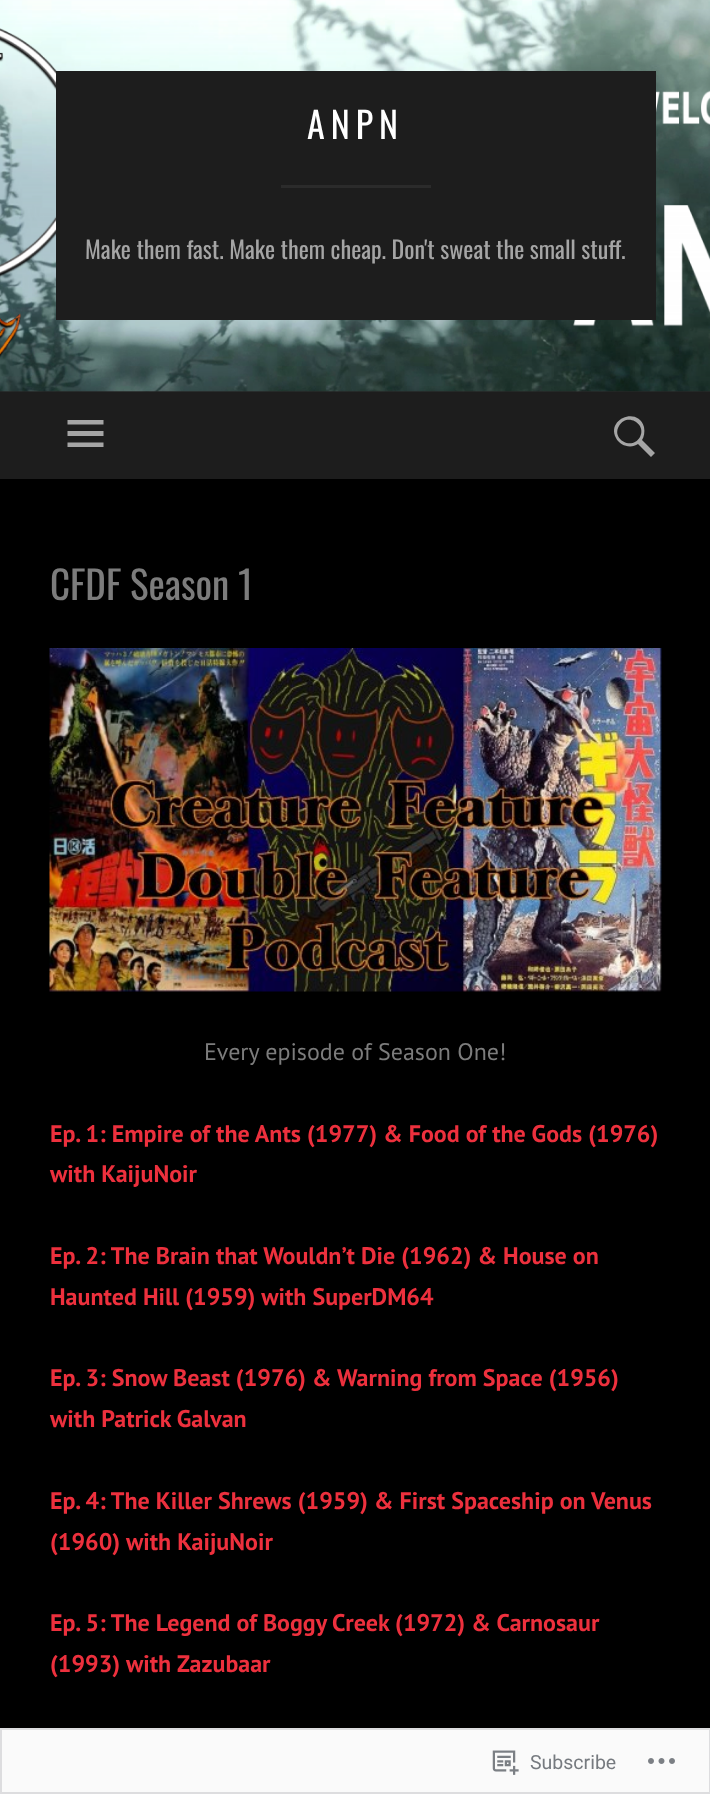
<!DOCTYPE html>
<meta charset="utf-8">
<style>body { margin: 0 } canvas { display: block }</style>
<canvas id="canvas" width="710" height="1794"></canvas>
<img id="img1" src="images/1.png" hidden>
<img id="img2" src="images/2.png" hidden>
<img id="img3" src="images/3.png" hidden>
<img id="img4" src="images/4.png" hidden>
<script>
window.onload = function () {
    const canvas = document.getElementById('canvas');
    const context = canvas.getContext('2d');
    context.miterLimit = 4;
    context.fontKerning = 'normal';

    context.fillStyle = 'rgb(0, 0, 0)';
    context.fillRect(0, 0, 710, 1794);
    context.fillStyle = 'rgb(250, 250, 250)';
    context.fillRect(0, 1728, 710, 66);
    context.fillStyle = 'rgb(38, 38, 38)';
    context.fillRect(0, 391, 710, 1);
    context.drawImage(document.getElementById('img1'), 0, 0, 710, 392);
    context.fillStyle = 'rgb(29, 29, 29)';
    context.fillRect(56, 71, 600, 249);
    context.fillStyle = 'rgb(43, 43, 43)';
    context.fillRect(281, 185, 150, 3);
    context.fillStyle = 'rgb(29, 29, 29)';
    context.fillRect(0, 392, 710, 87);
    context.fillStyle = 'rgb(165, 165, 165)';
    context.beginPath();
    context.moveTo(67.5, 447);
    context.lineTo(67.5, 442.5);
    context.lineTo(103.5, 442.5);
    context.lineTo(103.5, 447);
    context.closePath();
    context.moveTo(67.5, 420);
    context.lineTo(103.5, 420);
    context.lineTo(103.5, 424.5);
    context.lineTo(67.5, 424.5);
    context.closePath();
    context.moveTo(67.5, 436);
    context.lineTo(67.5, 431);
    context.lineTo(103.5, 431);
    context.lineTo(103.5, 436);
    context.closePath();
    context.fill();
    context.beginPath();
    context.moveTo(655, 453);
    context.lineTo(651, 457);
    context.lineTo(638, 444);
    context.bezierCurveTo(631, 449, 620, 446, 616, 438);
    context.bezierCurveTo(606, 419, 638, 406, 644, 427);
    context.bezierCurveTo(645, 432, 644, 437, 642, 440);
    context.closePath();
    context.moveTo(619, 426);
    context.bezierCurveTo(611, 439, 632, 451, 640, 437);
    context.bezierCurveTo(647, 424, 627, 412, 619, 426);
    context.closePath();
    context.fill();
    context.drawImage(document.getElementById('img2'), 49, 648, 613, 344);
    context.strokeStyle = 'rgba(220, 220, 222, 0.98)';
    context.lineWidth = 2;
    context.strokeRect(1, 1729, 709, 64);
    context.drawImage(document.getElementById('img3'), 492, 1750, 27, 25);
    context.drawImage(document.getElementById('img4'), 648, 1758, 27, 6);
    context.letterSpacing = '6px';
    context.font = '36px Oswald';
    context.fillStyle = 'rgb(255, 255, 255)';
    context.fillText('ANPN', 307, 139);
    context.letterSpacing = '0px';
    context.font = '24px Oswald';
    context.fillStyle = 'rgb(165, 165, 165)';
    context.fillText('Make them fast. Make them cheap. Don\'t sweat the small stuff.', 85, 259);
    context.font = '39px Oswald';
    context.fillStyle = 'rgb(124, 124, 124)';
    context.fillText('CFDF Season 1', 50, 600);
    context.font = '24px PT Sans';
    context.fillText('Every episode of Season One!', 204, 1060);
    context.font = 'bold 24px PT Sans';
    context.fillStyle = 'rgb(237, 48, 61)';
    context.fillText('Ep. 1: Empire of the Ants (1977) & Food of the Gods (1976)', 50, 1142);
    context.fillText('with KaijuNoir', 50, 1182);
    context.fillText('Ep. 2: The Brain that Wouldn’t Die (1962) & House on', 50, 1264);
    context.fillText('Haunted Hill (1959) with SuperDM64', 50, 1305);
    context.fillText('Ep. 3: Snow Beast (1976) & Warning from Space (1956)', 50, 1386);
    context.fillText('with Patrick Galvan', 50, 1427);
    context.fillText('Ep. 4: The Killer Shrews (1959) & First Spaceship on Venus', 50, 1509);
    context.fillText('(1960) with KaijuNoir', 50, 1550);
    context.fillText('Ep. 5: The Legend of Boggy Creek (1972) & Carnosaur', 50, 1631);
    context.fillText('(1993) with Zazubaar', 50, 1672);
    context.font = '19.5px Roboto';
    context.fillStyle = 'rgb(118, 122, 127)';
    context.fillText('Subscribe', 530, 1769);
};
</script>
